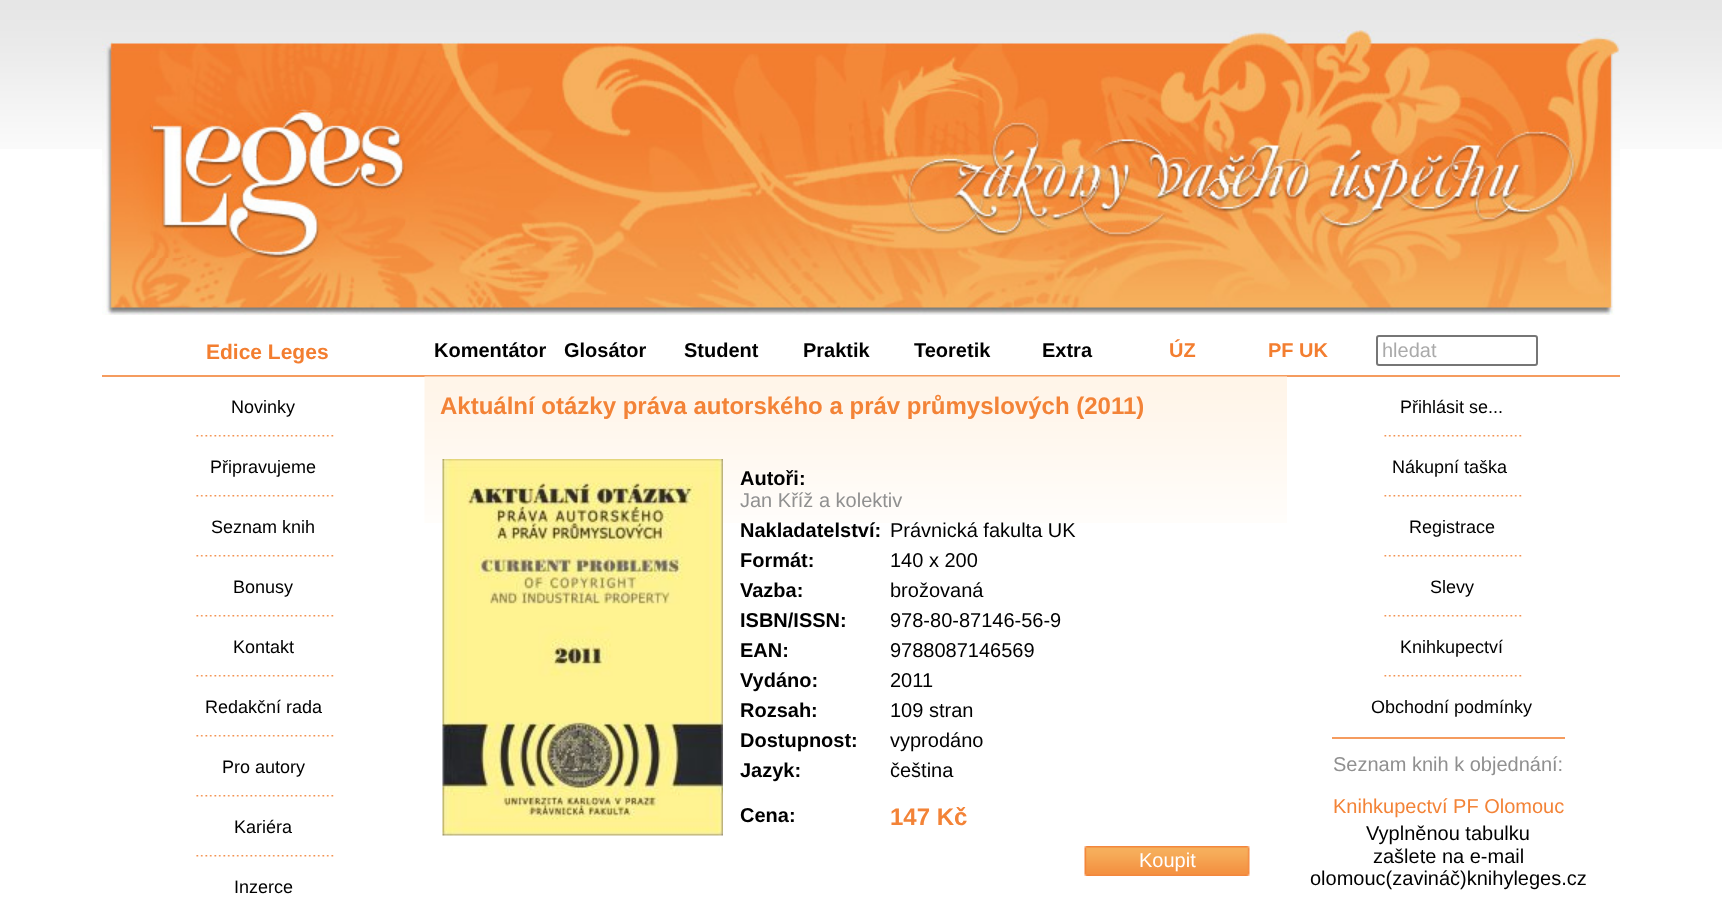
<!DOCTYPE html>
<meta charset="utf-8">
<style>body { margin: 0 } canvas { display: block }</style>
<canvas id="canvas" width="1722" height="904"></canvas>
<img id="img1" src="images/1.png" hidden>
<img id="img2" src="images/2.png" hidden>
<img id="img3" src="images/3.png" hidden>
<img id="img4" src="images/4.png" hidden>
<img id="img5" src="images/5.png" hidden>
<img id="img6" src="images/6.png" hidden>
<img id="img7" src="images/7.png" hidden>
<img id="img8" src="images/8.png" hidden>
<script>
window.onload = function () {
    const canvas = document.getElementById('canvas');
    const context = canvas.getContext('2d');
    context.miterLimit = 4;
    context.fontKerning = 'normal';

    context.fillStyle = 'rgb(255, 255, 255)';
    context.fillRect(0, 0, 1722, 904);
    context.drawImage(document.getElementById('img1'), 0, 0, 1722, 149);
    context.drawImage(document.getElementById('img2'), 102, 30, 1518, 285);
    context.drawImage(document.getElementById('img3'), 151, 111, 254, 147);
    context.fillStyle = 'rgb(245, 156, 95)';
    context.fillRect(102, 375, 1518, 2);
    context.beginPath();
    context.roundRect(1377, 336, 160, 29, 2);
    context.strokeStyle = 'rgb(118, 118, 118)';
    context.lineWidth = 2;
    context.stroke();
    context.drawImage(document.getElementById('img4'), 196, 435, 138, 2);
    context.drawImage(document.getElementById('img4'), 196, 495, 138, 2);
    context.drawImage(document.getElementById('img4'), 196, 555, 138, 2);
    context.drawImage(document.getElementById('img4'), 196, 615, 138, 2);
    context.drawImage(document.getElementById('img4'), 196, 675, 138, 2);
    context.drawImage(document.getElementById('img4'), 196, 735, 138, 2);
    context.drawImage(document.getElementById('img4'), 196, 795, 138, 2);
    context.drawImage(document.getElementById('img4'), 196, 855, 138, 2);
    context.drawImage(document.getElementById('img5'), 424, 376, 863, 147);
    context.drawImage(document.getElementById('img6'), 442, 459, 281, 377);
    context.drawImage(document.getElementById('img7'), 1084, 846, 166, 30);
    context.drawImage(document.getElementById('img8'), 1384, 435, 138, 2);
    context.drawImage(document.getElementById('img8'), 1384, 495, 138, 2);
    context.drawImage(document.getElementById('img8'), 1384, 555, 138, 2);
    context.drawImage(document.getElementById('img8'), 1384, 615, 138, 2);
    context.drawImage(document.getElementById('img8'), 1384, 675, 138, 2);
    context.fillRect(1332, 737, 233, 2);
    context.font = 'bold 21px Liberation Sans';
    context.fillStyle = 'rgb(243, 126, 48)';
    context.fillText('Edice Leges', 206, 359);
    context.font = 'bold 20px Liberation Sans';
    context.fillStyle = 'rgb(0, 0, 0)';
    context.fillText('Komentátor', 434, 357);
    context.fillText('Glosátor', 564, 357);
    context.fillText('Student', 684, 357);
    context.fillText('Praktik', 803, 357);
    context.fillText('Teoretik', 914, 357);
    context.fillText('Extra', 1042, 357);
    context.fillStyle = 'rgb(243, 126, 48)';
    context.fillText('ÚZ', 1169, 357);
    context.fillText('PF UK', 1268, 357);
    context.font = '20px Liberation Sans';
    context.fillStyle = 'rgb(170, 170, 170)';
    context.fillText('hledat', 1382, 357);
    context.font = '18px Liberation Sans';
    context.fillStyle = 'rgb(0, 0, 0)';
    context.fillText('Novinky', 231, 413);
    context.fillText('Připravujeme', 210, 473);
    context.fillText('Seznam knih', 211, 533);
    context.fillText('Bonusy', 233, 593);
    context.fillText('Kontakt', 233, 653);
    context.fillText('Redakční rada', 205, 713);
    context.fillText('Pro autory', 222, 773);
    context.fillText('Kariéra', 234, 833);
    context.fillText('Inzerce', 234, 893);
    context.font = 'bold 24px Liberation Sans';
    context.fillStyle = 'rgb(243, 131, 55)';
    context.fillText('Aktuální otázky práva autorského a práv průmyslových (2011)', 440, 414);
    context.font = 'bold 20px Liberation Sans';
    context.fillStyle = 'rgb(0, 0, 0)';
    context.fillText('Autoři:', 740, 485);
    context.font = '20px Liberation Sans';
    context.fillStyle = 'rgb(144, 144, 144)';
    context.fillText('Jan Kříž a kolektiv', 740, 507);
    context.font = 'bold 20px Liberation Sans';
    context.fillStyle = 'rgb(0, 0, 0)';
    context.fillText('Nakladatelství:', 740, 537);
    context.font = '20px Liberation Sans';
    context.fillText('Právnická fakulta UK', 890, 537);
    context.font = 'bold 20px Liberation Sans';
    context.fillText('Formát:', 740, 567);
    context.font = '20px Liberation Sans';
    context.fillText('140 x 200', 890, 567);
    context.font = 'bold 20px Liberation Sans';
    context.fillText('Vazba:', 740, 597);
    context.font = '20px Liberation Sans';
    context.fillText('brožovaná', 890, 597);
    context.font = 'bold 20px Liberation Sans';
    context.fillText('ISBN/ISSN:', 740, 627);
    context.font = '20px Liberation Sans';
    context.fillText('978-80-87146-56-9', 890, 627);
    context.font = 'bold 20px Liberation Sans';
    context.fillText('EAN:', 740, 657);
    context.font = '20px Liberation Sans';
    context.fillText('9788087146569', 890, 657);
    context.font = 'bold 20px Liberation Sans';
    context.fillText('Vydáno:', 740, 687);
    context.font = '20px Liberation Sans';
    context.fillText('2011', 890, 687);
    context.font = 'bold 20px Liberation Sans';
    context.fillText('Rozsah:', 740, 717);
    context.font = '20px Liberation Sans';
    context.fillText('109 stran', 890, 717);
    context.font = 'bold 20px Liberation Sans';
    context.fillText('Dostupnost:', 740, 747);
    context.font = '20px Liberation Sans';
    context.fillText('vyprodáno', 890, 747);
    context.font = 'bold 20px Liberation Sans';
    context.fillText('Jazyk:', 740, 777);
    context.font = '20px Liberation Sans';
    context.fillText('čeština', 890, 777);
    context.font = 'bold 20px Liberation Sans';
    context.fillText('Cena:', 740, 822);
    context.font = 'bold 24px Liberation Sans';
    context.fillStyle = 'rgb(243, 131, 55)';
    context.fillText('147 Kč', 890, 825);
    context.font = '20px Liberation Sans';
    context.fillStyle = 'rgb(255, 255, 255)';
    context.fillText('Koupit', 1139, 867);
    context.font = '18px Liberation Sans';
    context.fillStyle = 'rgb(0, 0, 0)';
    context.fillText('Přihlásit se...', 1400, 413);
    context.fillText('Nákupní taška', 1392, 473);
    context.fillText('Registrace', 1409, 533);
    context.fillText('Slevy', 1430, 593);
    context.fillText('Knihkupectví', 1400, 653);
    context.fillText('Obchodní podmínky', 1371, 713);
    context.font = '20px Liberation Sans';
    context.fillStyle = 'rgb(144, 144, 144)';
    context.fillText('Seznam knih k objednání:', 1333, 771);
    context.fillStyle = 'rgb(243, 131, 55)';
    context.fillText('Knihkupectví PF Olomouc', 1333, 813);
    context.fillStyle = 'rgb(0, 0, 0)';
    context.fillText('Vyplněnou tabulku', 1366, 840);
    context.fillText('zašlete na e-mail', 1373, 863);
    context.fillText('olomouc(zavináč)knihyleges.cz', 1310, 885);
};
</script>
